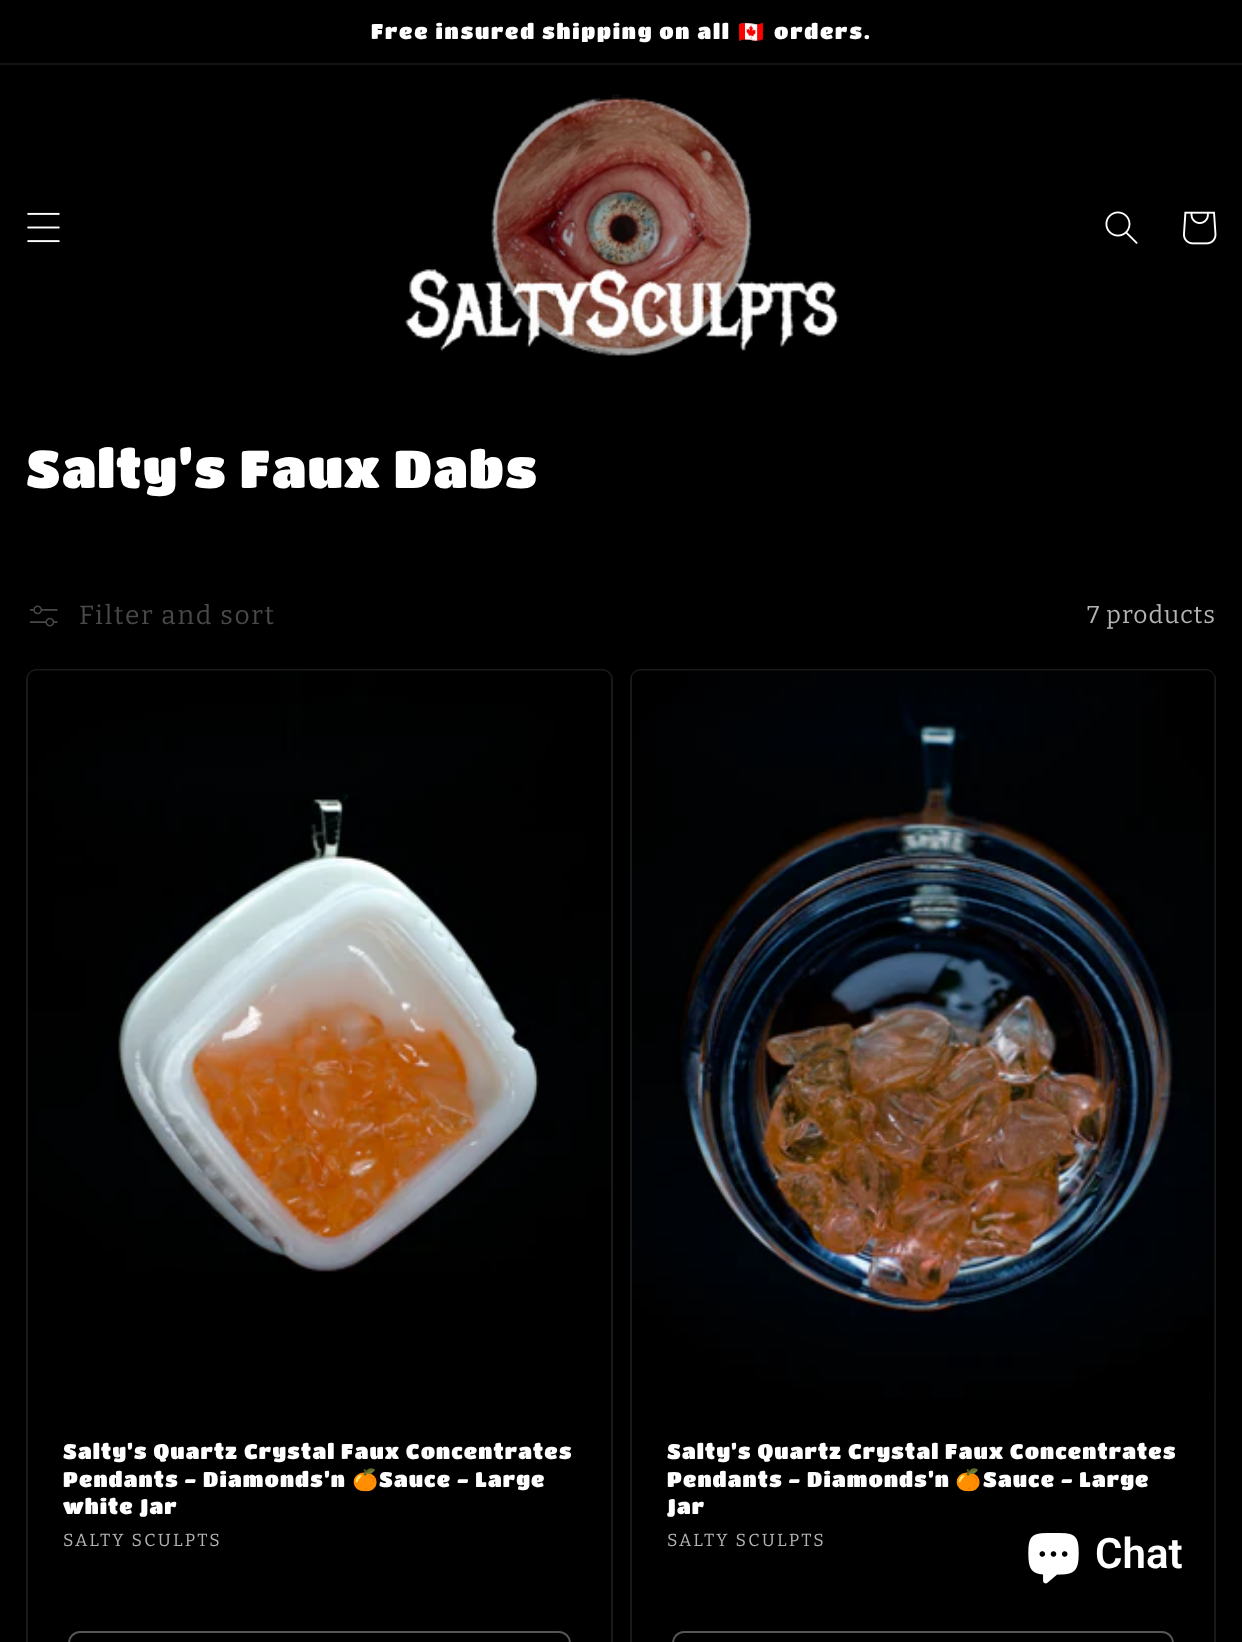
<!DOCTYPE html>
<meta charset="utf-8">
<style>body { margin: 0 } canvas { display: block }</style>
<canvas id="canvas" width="1242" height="1642"></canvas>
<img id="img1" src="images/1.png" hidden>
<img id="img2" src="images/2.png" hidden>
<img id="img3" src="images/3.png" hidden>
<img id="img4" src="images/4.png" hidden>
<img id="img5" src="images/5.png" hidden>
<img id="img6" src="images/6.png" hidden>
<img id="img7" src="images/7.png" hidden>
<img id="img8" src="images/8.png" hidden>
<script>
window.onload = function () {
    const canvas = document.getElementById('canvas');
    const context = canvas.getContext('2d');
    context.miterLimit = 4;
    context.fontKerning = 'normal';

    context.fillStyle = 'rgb(0, 0, 0)';
    context.fillRect(0, 0, 1242, 1642);
    context.fillStyle = 'rgb(20, 20, 20)';
    context.fillRect(0, 63, 1242, 2);
    context.drawImage(document.getElementById('img1'), 27, 212, 33, 31);
    context.drawImage(document.getElementById('img2'), 405, 94, 434, 262);
    context.drawImage(document.getElementById('img3'), 1105, 211, 33, 33);
    context.drawImage(document.getElementById('img4'), 1183, 211, 34, 34);
    context.drawImage(document.getElementById('img5'), 29, 605, 29, 22);
    context.beginPath();
    context.roundRect(27, 670, 585, 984, 10);
    context.strokeStyle = 'rgb(26, 26, 26)';
    context.lineWidth = 2;
    context.stroke();
    context.drawImage(document.getElementById('img6'), 28, 670, 583, 603);
    context.beginPath();
    context.roundRect(69, 1632, 501, 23, 11);
    context.strokeStyle = 'rgb(86, 86, 86)';
    context.stroke();
    context.beginPath();
    context.roundRect(631, 670, 584, 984, 10);
    context.strokeStyle = 'rgb(26, 26, 26)';
    context.stroke();
    context.drawImage(document.getElementById('img7'), 632, 670, 583, 728);
    context.beginPath();
    context.roundRect(673, 1632, 500, 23, 11);
    context.strokeStyle = 'rgb(86, 86, 86)';
    context.stroke();
    context.drawImage(document.getElementById('img8'), 1028, 1533, 51, 51);
    context.letterSpacing = '1.75px';
    context.wordSpacing = '-0.5px';
    context.font = '21px Titan One';
    context.fillStyle = 'rgb(255, 255, 255)';
    context.fillText('Free insured shipping on all', 371, 39);
    context.wordSpacing = '0px';
    context.font = '21px Noto Color Emoji';
    context.fillText('🇨🇦', 738, 39);
    context.font = '21px Titan One';
    context.fillText('orders.', 774, 39);
    context.letterSpacing = '1.05px';
    context.font = '52.5px Titan One';
    context.fillText('Salty’s Faux Dabs', 26, 488);
    context.letterSpacing = '1.75px';
    context.font = '26.25px Bitter';
    context.fillStyle = 'rgb(73, 73, 73)';
    context.fillText('Filter and sort', 79, 624);
    context.letterSpacing = '1.05px';
    context.font = '24.5px Bitter';
    context.fillStyle = 'rgb(179, 179, 179)';
    context.fillText('7 products', 1087, 623);
    context.font = '21px Titan One';
    context.fillStyle = 'rgb(255, 255, 255)';
    context.fillText('Salty’s Quartz Crystal Faux Concentrates', 63, 1459);
    context.fillText('Pendants - Diamonds’n', 63, 1487);
    context.font = '21px Noto Color Emoji';
    context.fillText('🍊', 352, 1487);
    context.font = '21px Titan One';
    context.fillText('Sauce - Large', 379, 1487);
    context.fillText('white Jar', 63, 1514);
    context.letterSpacing = '2.25px';
    context.font = '17.5px Bitter';
    context.fillStyle = 'rgb(179, 179, 179)';
    context.fillText('SALTY SCULPTS', 63, 1546);
    context.letterSpacing = '1.05px';
    context.font = '21px Titan One';
    context.fillStyle = 'rgb(255, 255, 255)';
    context.fillText('Salty’s Quartz Crystal Faux Concentrates', 667, 1459);
    context.fillText('Pendants - Diamonds’n', 667, 1487);
    context.font = '21px Noto Color Emoji';
    context.fillText('🍊', 955, 1487);
    context.font = '21px Titan One';
    context.fillText('Sauce - Large', 983, 1487);
    context.fillText('Jar', 667, 1514);
    context.letterSpacing = '2.25px';
    context.font = '17.5px Bitter';
    context.fillStyle = 'rgb(179, 179, 179)';
    context.fillText('SALTY SCULPTS', 667, 1546);
    context.letterSpacing = '0px';
    context.font = '600 42px Roboto';
    context.fillStyle = 'rgb(255, 255, 255)';
    context.fillText('Chat', 1095, 1568);
};
</script>
